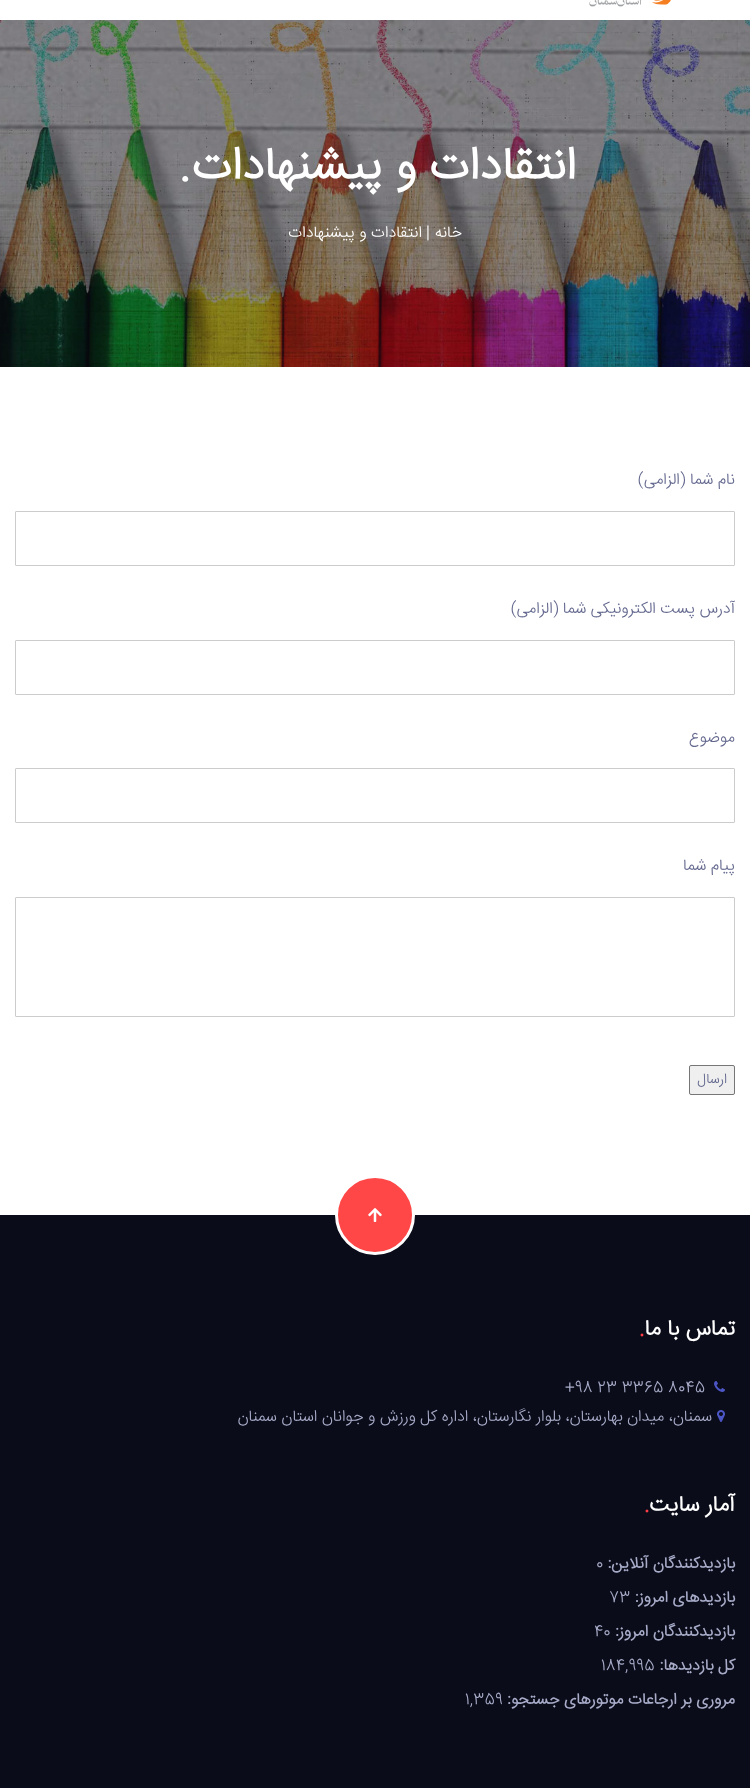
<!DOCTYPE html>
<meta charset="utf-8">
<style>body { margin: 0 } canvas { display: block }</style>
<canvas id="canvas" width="750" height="1788"></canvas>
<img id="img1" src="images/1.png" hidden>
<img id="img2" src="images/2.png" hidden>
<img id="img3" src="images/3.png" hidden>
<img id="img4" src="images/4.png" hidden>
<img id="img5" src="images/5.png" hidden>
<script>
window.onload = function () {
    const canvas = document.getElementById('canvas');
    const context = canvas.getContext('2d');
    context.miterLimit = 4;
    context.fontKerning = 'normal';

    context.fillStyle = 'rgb(255, 255, 255)';
    context.fillRect(0, 0, 750, 1788);
    context.drawImage(document.getElementById('img1'), 589, 0, 82, 7);
    context.drawImage(document.getElementById('img2'), 0, 20, 750, 347);
    context.beginPath();
    context.roundRect(15.5, 511.5, 719, 54, 0.5);
    context.strokeStyle = 'rgb(204, 204, 204)';
    context.stroke();
    context.beginPath();
    context.roundRect(15.5, 640.5, 719, 54, 0.5);
    context.stroke();
    context.beginPath();
    context.roundRect(15.5, 768.5, 719, 54, 0.5);
    context.stroke();
    context.beginPath();
    context.roundRect(15.5, 897.5, 719, 119, 0.5);
    context.stroke();
    context.fillStyle = 'rgb(239, 239, 239)';
    context.beginPath();
    context.roundRect(689.5, 1065.5, 45, 29, 1.5);
    context.fill();
    context.strokeStyle = 'rgb(118, 118, 118)';
    context.stroke();
    context.fillStyle = 'rgb(10, 12, 25)';
    context.fillRect(0, 1215, 750, 573);
    context.fillStyle = 'rgb(255, 71, 71)';
    context.beginPath();
    context.arc(375, 1215, 38.5, 0, 2 * Math.PI);
    context.fill();
    context.strokeStyle = 'rgb(255, 255, 255)';
    context.lineWidth = 3;
    context.stroke();
    context.drawImage(document.getElementById('img3'), 368, 1208, 14, 14);
    context.drawImage(document.getElementById('img4'), 714, 1381, 11, 11);
    context.drawImage(document.getElementById('img5'), 717, 1410, 8, 12);
    context.direction = 'rtl';
    context.font = 'bold 46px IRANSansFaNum';
    context.fillStyle = 'rgb(255, 255, 255)';
    context.fillText('انتقادات و پیشنهادات', 576, 179);
    context.direction = 'ltr';
    context.fillText('.', 179, 179);
    context.direction = 'rtl';
    context.font = '300 16px IRANSansFaNum';
    context.fillText('خانه', 462, 237);
    context.direction = 'ltr';
    context.fillText('|', 426, 237);
    context.direction = 'rtl';
    context.fillText('انتقادات و پیشنهادات', 422, 237);
    context.fillStyle = 'rgb(99, 104, 142)';
    context.fillText('نام شما (الزامی)', 735, 484);
    context.fillText('آدرس پست الکترونیکی شما (الزامی)', 735, 613);
    context.fillText('موضوع', 735, 742);
    context.fillText('پیام شما', 735, 870);
    context.font = '300 14px IRANSansFaNum';
    context.fillText('ارسال', 727, 1083);
    context.font = 'bold 22px IRANSansFaNum';
    context.fillStyle = 'rgb(255, 255, 255)';
    context.fillText('تماس با ما', 735, 1335);
    context.direction = 'ltr';
    context.fillStyle = 'rgb(255, 61, 70)';
    context.fillText('.', 639, 1335);
    context.font = '300 16px IRANSansFaNum';
    context.fillStyle = 'rgb(168, 172, 201)';
    context.fillText('+98 23 3365 8045', 565, 1392);
    context.direction = 'rtl';
    context.fillText('سمنان، میدان بهارستان، بلوار نگارستان، اداره کل ورزش و جوانان استان سمنان', 712, 1421);
    context.font = 'bold 22px IRANSansFaNum';
    context.fillStyle = 'rgb(255, 255, 255)';
    context.fillText('آمار سایت', 735, 1511);
    context.direction = 'ltr';
    context.fillStyle = 'rgb(255, 61, 70)';
    context.fillText('.', 644, 1511);
    context.direction = 'rtl';
    context.font = 'bold 16px IRANSansFaNum';
    context.fillStyle = 'rgb(168, 172, 201)';
    context.fillText('بازدیدکنندگان آنلاین:', 735, 1568);
    context.direction = 'ltr';
    context.font = '300 16px IRANSansFaNum';
    context.fillText('0', 596, 1568);
    context.direction = 'rtl';
    context.font = 'bold 16px IRANSansFaNum';
    context.fillText('بازدیدهای امروز:', 735, 1602);
    context.direction = 'ltr';
    context.font = '300 16px IRANSansFaNum';
    context.fillText('73', 609, 1602);
    context.direction = 'rtl';
    context.font = 'bold 16px IRANSansFaNum';
    context.fillText('بازدیدکنندگان امروز:', 735, 1636);
    context.direction = 'ltr';
    context.font = '300 16px IRANSansFaNum';
    context.fillText('40', 594, 1636);
    context.direction = 'rtl';
    context.font = 'bold 16px IRANSansFaNum';
    context.fillText('کل بازدیدها:', 735, 1670);
    context.direction = 'ltr';
    context.font = '300 16px IRANSansFaNum';
    context.fillText('184,995', 601, 1670);
    context.direction = 'rtl';
    context.font = 'bold 16px IRANSansFaNum';
    context.fillText('مروری بر ارجاعات موتورهای جستجو:', 735, 1704);
    context.direction = 'ltr';
    context.font = '300 16px IRANSansFaNum';
    context.fillText('1,359', 465, 1704);
};
</script>
